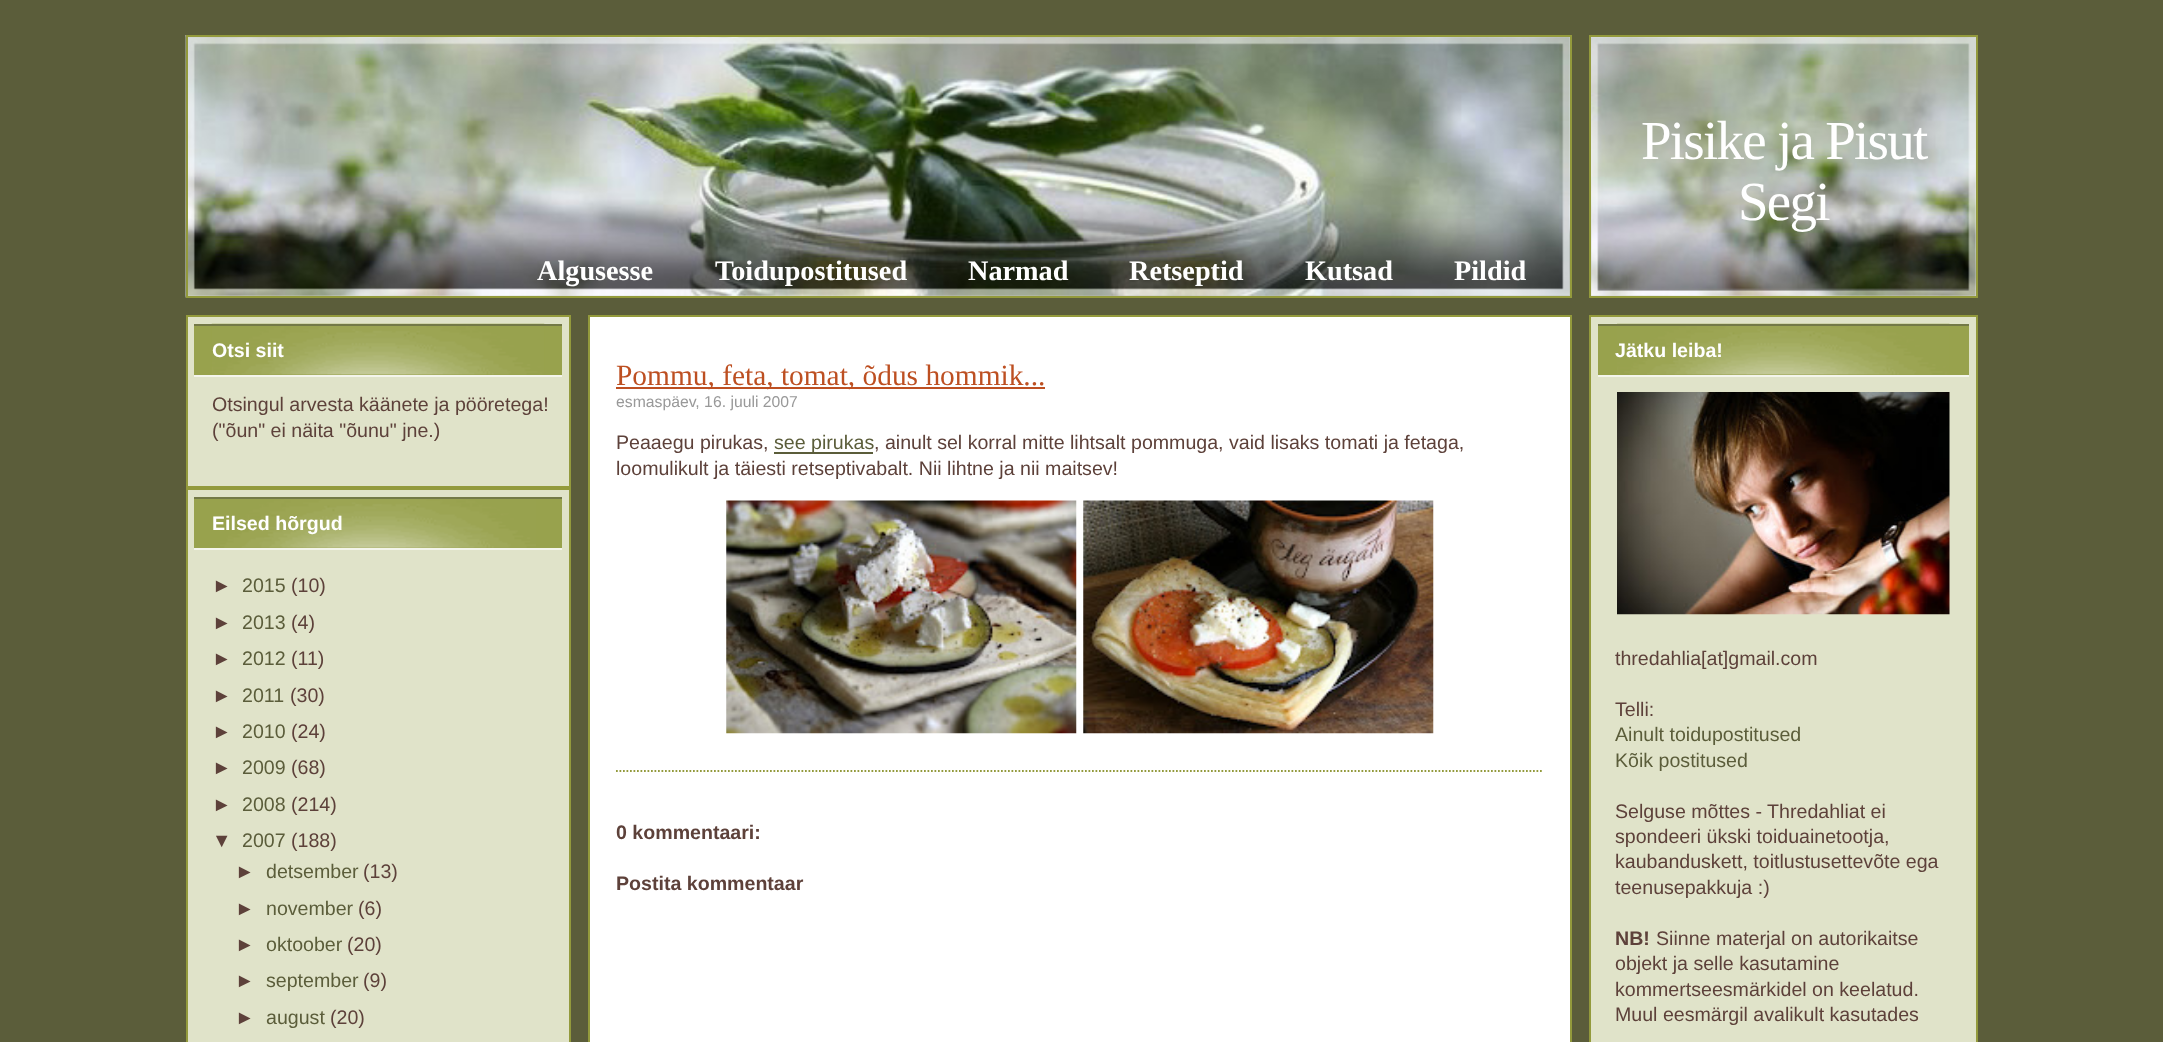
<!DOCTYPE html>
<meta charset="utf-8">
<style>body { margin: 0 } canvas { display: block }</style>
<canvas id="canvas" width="2163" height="1042"></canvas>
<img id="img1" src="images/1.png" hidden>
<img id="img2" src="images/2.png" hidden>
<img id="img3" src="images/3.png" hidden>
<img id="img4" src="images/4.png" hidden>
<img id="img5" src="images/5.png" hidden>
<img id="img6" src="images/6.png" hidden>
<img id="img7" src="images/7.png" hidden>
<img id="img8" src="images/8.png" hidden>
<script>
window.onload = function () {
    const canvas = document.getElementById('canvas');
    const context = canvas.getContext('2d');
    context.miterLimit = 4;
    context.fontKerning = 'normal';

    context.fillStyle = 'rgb(91, 93, 58)';
    context.fillRect(0, 0, 2163, 1042);
    context.drawImage(document.getElementById('img1'), 1591, 37, 385, 259);
    context.strokeStyle = 'rgb(147, 154, 60)';
    context.lineWidth = 2;
    context.strokeRect(1590, 36, 387, 261);
    context.drawImage(document.getElementById('img2'), 185, 35, 1385, 263);
    context.strokeRect(187, 36, 1384, 261);
    context.fillStyle = 'rgb(224, 227, 201)';
    context.beginPath();
    context.rect(187, 316, 383, 171);
    context.fill();
    context.stroke();
    context.fillStyle = 'rgb(152, 162, 77)';
    context.fillRect(194, 326, 368, 49);
    context.drawImage(document.getElementById('img3'), 211, 323, 334, 52);
    context.fillStyle = 'rgb(115, 121, 71)';
    context.fillRect(194, 324, 368, 2);
    context.fillStyle = 'rgb(244, 245, 236)';
    context.fillRect(194, 375, 368, 2);
    context.fillStyle = 'rgb(224, 227, 201)';
    context.beginPath();
    context.rect(187, 489, 383, 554);
    context.fill();
    context.stroke();
    context.fillStyle = 'rgb(152, 162, 77)';
    context.fillRect(194, 499, 368, 49);
    context.drawImage(document.getElementById('img4'), 220, 499, 316, 49);
    context.fillStyle = 'rgb(115, 121, 71)';
    context.fillRect(194, 497, 368, 2);
    context.fillStyle = 'rgb(244, 245, 236)';
    context.fillRect(194, 548, 368, 2);
    context.fillStyle = 'rgb(255, 255, 255)';
    context.beginPath();
    context.rect(589, 316, 982, 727);
    context.fill();
    context.stroke();
    context.fillStyle = 'rgb(189, 79, 33)';
    context.fillRect(616, 387, 429, 2);
    context.fillStyle = 'rgb(91, 93, 58)';
    context.fillRect(774, 452, 99, 2);
    context.drawImage(document.getElementById('img5'), 726, 500, 351, 234);
    context.drawImage(document.getElementById('img6'), 1083, 500, 351, 234);
    context.beginPath();
    context.moveTo(616, 771);
    context.lineTo(1543.5, 771);
    context.lineWidth = 1.8;
    context.setLineDash([1.75, 1.75]);
    context.stroke();
    context.fillStyle = 'rgb(224, 227, 201)';
    context.beginPath();
    context.rect(1590, 316, 387, 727);
    context.fill();
    context.lineWidth = 2;
    context.setLineDash([]);
    context.stroke();
    context.fillStyle = 'rgb(152, 162, 77)';
    context.fillRect(1598, 326, 371, 49);
    context.drawImage(document.getElementById('img7'), 1617, 323, 333, 52);
    context.fillStyle = 'rgb(115, 121, 71)';
    context.fillRect(1598, 324, 371, 2);
    context.fillStyle = 'rgb(244, 245, 236)';
    context.fillRect(1598, 375, 371, 2);
    context.drawImage(document.getElementById('img8'), 1617, 392, 333, 223);
    context.letterSpacing = '-1.75px';
    context.font = '55px Liberation Serif';
    context.fillStyle = 'rgb(255, 255, 255)';
    context.fillText('Pisike ja Pisut', 1641, 159);
    context.fillText('Segi', 1738, 220);
    context.letterSpacing = '0px';
    context.font = 'bold 28.25px Liberation Serif';
    context.fillText('Algusesse', 537, 280);
    context.fillText('Toidupostitused', 715, 280);
    context.fillText('Narmad', 968, 280);
    context.fillText('Retseptid', 1129, 280);
    context.fillText('Kutsad', 1305, 280);
    context.fillText('Pildid', 1454, 280);
    context.font = 'bold 19.6px Liberation Sans';
    context.fillText('Otsi siit', 212, 357);
    context.font = '19.6px Liberation Sans';
    context.fillStyle = 'rgb(93, 65, 58)';
    context.fillText('Otsingul arvesta käänete ja pööretega!', 212, 411);
    context.fillText('("õun" ei näita "õunu" jne.)', 212, 437);
    context.font = 'bold 19.6px Liberation Sans';
    context.fillStyle = 'rgb(255, 255, 255)';
    context.fillText('Eilsed hõrgud', 212, 530);
    context.font = '19.6px Liberation Sans';
    context.fillStyle = 'rgb(93, 65, 58)';
    context.fillText('►', 212, 592);
    context.fillStyle = 'rgb(91, 93, 58)';
    context.fillText('2015', 242, 592);
    context.fillStyle = 'rgb(93, 65, 58)';
    context.fillText('(10)', 291, 592);
    context.fillText('►', 212, 629);
    context.fillStyle = 'rgb(91, 93, 58)';
    context.fillText('2013', 242, 629);
    context.fillStyle = 'rgb(93, 65, 58)';
    context.fillText('(4)', 291, 629);
    context.fillText('►', 212, 665);
    context.fillStyle = 'rgb(91, 93, 58)';
    context.fillText('2012', 242, 665);
    context.fillStyle = 'rgb(93, 65, 58)';
    context.fillText('(11)', 291, 665);
    context.fillText('►', 212, 702);
    context.fillStyle = 'rgb(91, 93, 58)';
    context.fillText('2011', 242, 702);
    context.fillStyle = 'rgb(93, 65, 58)';
    context.fillText('(30)', 290, 702);
    context.fillText('►', 212, 738);
    context.fillStyle = 'rgb(91, 93, 58)';
    context.fillText('2010', 242, 738);
    context.fillStyle = 'rgb(93, 65, 58)';
    context.fillText('(24)', 291, 738);
    context.fillText('►', 212, 774);
    context.fillStyle = 'rgb(91, 93, 58)';
    context.fillText('2009', 242, 774);
    context.fillStyle = 'rgb(93, 65, 58)';
    context.fillText('(68)', 291, 774);
    context.fillText('►', 212, 811);
    context.fillStyle = 'rgb(91, 93, 58)';
    context.fillText('2008', 242, 811);
    context.fillStyle = 'rgb(93, 65, 58)';
    context.fillText('(214)', 291, 811);
    context.fillText('▼', 212, 847);
    context.fillStyle = 'rgb(91, 93, 58)';
    context.fillText('2007', 242, 847);
    context.fillStyle = 'rgb(93, 65, 58)';
    context.fillText('(188)', 291, 847);
    context.fillText('►', 235, 878);
    context.fillStyle = 'rgb(91, 93, 58)';
    context.fillText('detsember', 266, 878);
    context.fillStyle = 'rgb(93, 65, 58)';
    context.fillText('(13)', 363, 878);
    context.fillText('►', 235, 915);
    context.fillStyle = 'rgb(91, 93, 58)';
    context.fillText('november', 266, 915);
    context.fillStyle = 'rgb(93, 65, 58)';
    context.fillText('(6)', 358, 915);
    context.fillText('►', 235, 951);
    context.fillStyle = 'rgb(91, 93, 58)';
    context.fillText('oktoober', 266, 951);
    context.fillStyle = 'rgb(93, 65, 58)';
    context.fillText('(20)', 347, 951);
    context.fillText('►', 235, 987);
    context.fillStyle = 'rgb(91, 93, 58)';
    context.fillText('september', 266, 987);
    context.fillStyle = 'rgb(93, 65, 58)';
    context.fillText('(9)', 363, 987);
    context.fillText('►', 235, 1024);
    context.fillStyle = 'rgb(91, 93, 58)';
    context.fillText('august', 266, 1024);
    context.fillStyle = 'rgb(93, 65, 58)';
    context.fillText('(20)', 330, 1024);
    context.font = '29.4px Liberation Serif';
    context.fillStyle = 'rgb(189, 79, 33)';
    context.fillText('Pommu, feta, tomat, õdus hommik...', 616, 385);
    context.font = '15.75px Liberation Sans';
    context.fillStyle = 'rgb(153, 153, 153)';
    context.fillText('esmaspäev, 16. juuli 2007', 616, 407);
    context.font = '19.6px Liberation Sans';
    context.fillStyle = 'rgb(93, 65, 58)';
    context.fillText('Peaaegu pirukas,', 616, 449);
    context.fillStyle = 'rgb(91, 93, 58)';
    context.fillText('see pirukas', 774, 449);
    context.fillStyle = 'rgb(93, 65, 58)';
    context.fillText(', ainult sel korral mitte lihtsalt pommuga, vaid lisaks tomati ja fetaga,', 874, 449);
    context.fillText('loomulikult ja täiesti retseptivabalt. Nii lihtne ja nii maitsev!', 616, 475);
    context.font = 'bold 19.6px Liberation Sans';
    context.fillText('0 kommentaari:', 616, 839);
    context.fillText('Postita kommentaar', 616, 890);
    context.fillStyle = 'rgb(255, 255, 255)';
    context.fillText('Jätku leiba!', 1615, 357);
    context.font = '19.6px Liberation Sans';
    context.fillStyle = 'rgb(93, 65, 58)';
    context.fillText('thredahlia[at]gmail.com', 1615, 665);
    context.fillText('Telli:', 1615, 716);
    context.fillStyle = 'rgb(91, 93, 58)';
    context.fillText('Ainult toidupostitused', 1615, 741);
    context.fillText('Kõik postitused', 1615, 767);
    context.fillStyle = 'rgb(93, 65, 58)';
    context.fillText('Selguse mõttes - Thredahliat ei', 1615, 818);
    context.fillText('spondeeri ükski toiduainetootja,', 1615, 843);
    context.fillText('kaubanduskett, toitlustusettevõte ega', 1615, 868);
    context.fillText('teenusepakkuja :)', 1615, 894);
    context.font = 'bold 19.6px Liberation Sans';
    context.fillText('NB!', 1615, 945);
    context.font = '19.6px Liberation Sans';
    context.fillText('Siinne materjal on autorikaitse', 1656, 945);
    context.fillText('objekt ja selle kasutamine', 1615, 970);
    context.fillText('kommertseesmärkidel on keelatud.', 1615, 996);
    context.fillText('Muul eesmärgil avalikult kasutades', 1615, 1021);
};
</script>
